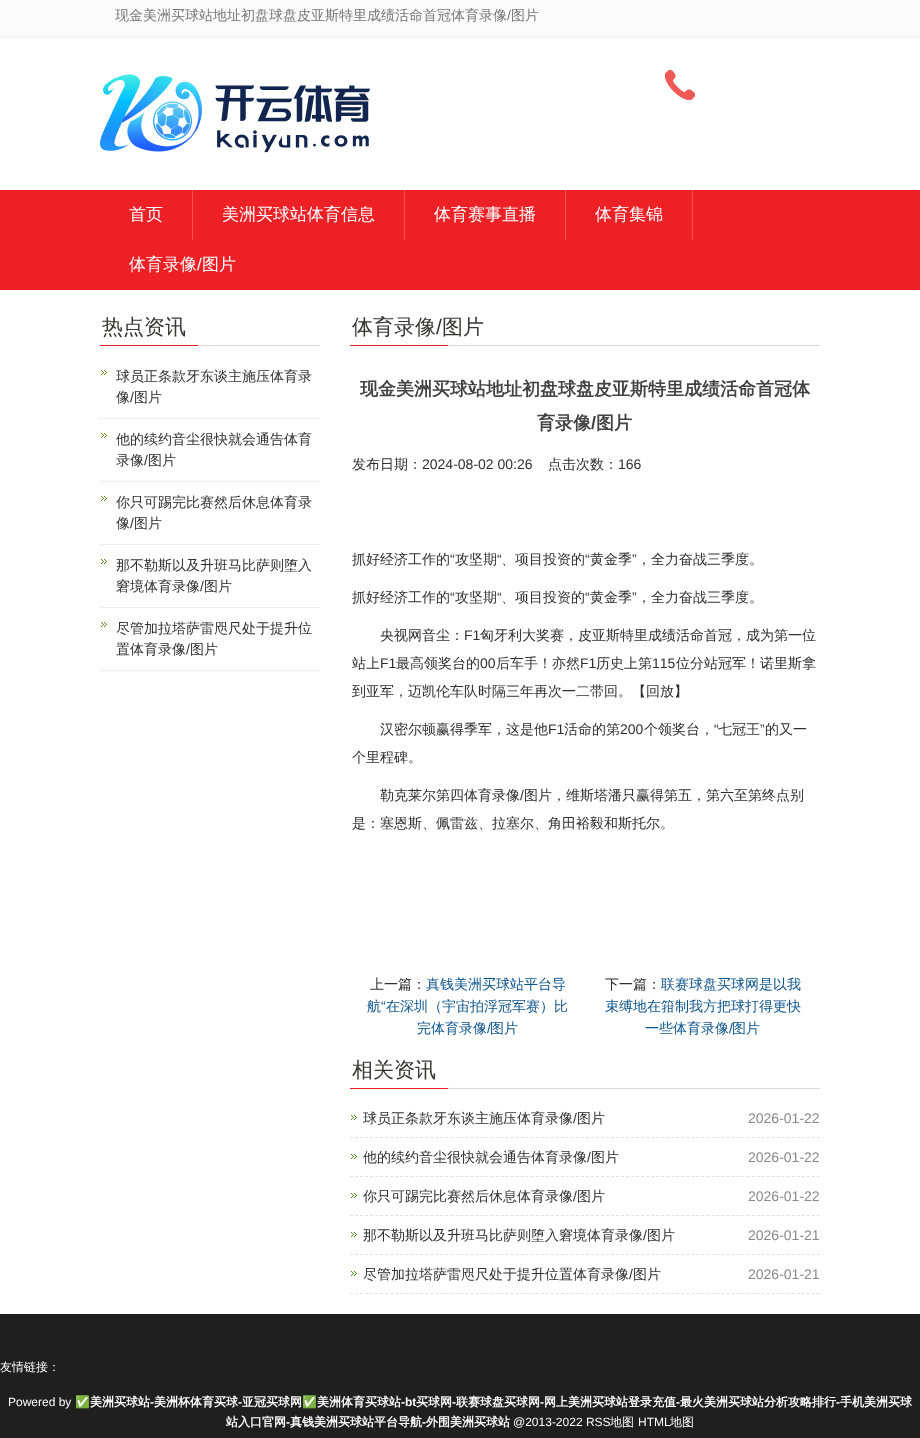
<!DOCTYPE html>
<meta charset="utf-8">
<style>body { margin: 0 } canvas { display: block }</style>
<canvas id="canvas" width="920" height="1438"></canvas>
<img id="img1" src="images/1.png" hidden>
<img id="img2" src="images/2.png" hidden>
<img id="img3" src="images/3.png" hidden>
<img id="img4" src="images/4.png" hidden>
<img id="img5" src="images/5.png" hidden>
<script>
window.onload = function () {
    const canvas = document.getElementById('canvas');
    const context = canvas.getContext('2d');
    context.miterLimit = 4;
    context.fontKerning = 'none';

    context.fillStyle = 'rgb(255, 255, 255)';
    context.fillRect(0, 0, 920, 1438);
    context.fillStyle = 'rgb(251, 251, 251)';
    context.fillRect(0, 0, 920, 37);
    context.fillStyle = 'rgb(243, 243, 243)';
    context.fillRect(0, 37, 920, 1);
    context.drawImage(document.getElementById('img1'), 100, 74, 270, 79);
    context.drawImage(document.getElementById('img2'), 663, 68, 32, 32);
    context.fillStyle = 'rgb(237, 32, 37)';
    context.fillRect(0, 190, 920, 100);
    context.fillStyle = 'rgb(251, 86, 80)';
    context.fillRect(192, 190, 1, 50);
    context.fillRect(404, 190, 1, 50);
    context.fillRect(565, 190, 1, 50);
    context.fillRect(692, 190, 1, 50);
    context.drawImage(document.getElementById('img3'), 100, 343, 220, 3);
    context.drawImage(document.getElementById('img4'), 101, 370, 6, 5);
    context.beginPath();
    context.moveTo(100, 418.5);
    context.lineTo(320, 418.5);
    context.strokeStyle = 'rgb(221, 221, 221)';
    context.setLineDash([1, 1]);
    context.stroke();
    context.drawImage(document.getElementById('img4'), 101, 433, 6, 5);
    context.beginPath();
    context.moveTo(100, 481.5);
    context.lineTo(320, 481.5);
    context.stroke();
    context.drawImage(document.getElementById('img4'), 101, 496, 6, 5);
    context.beginPath();
    context.moveTo(100, 544.5);
    context.lineTo(320, 544.5);
    context.stroke();
    context.drawImage(document.getElementById('img4'), 101, 559, 6, 5);
    context.beginPath();
    context.moveTo(100, 607.5);
    context.lineTo(320, 607.5);
    context.stroke();
    context.drawImage(document.getElementById('img4'), 101, 622, 6, 5);
    context.beginPath();
    context.moveTo(100, 670.5);
    context.lineTo(320, 670.5);
    context.stroke();
    context.drawImage(document.getElementById('img5'), 350, 343, 470, 3);
    context.drawImage(document.getElementById('img5'), 350, 1086, 470, 3);
    context.drawImage(document.getElementById('img4'), 351, 1115, 6, 5);
    context.beginPath();
    context.moveTo(350, 1137.5);
    context.lineTo(820, 1137.5);
    context.strokeStyle = 'rgb(227, 226, 226)';
    context.setLineDash([3, 2.02]);
    context.stroke();
    context.drawImage(document.getElementById('img4'), 351, 1154, 6, 5);
    context.beginPath();
    context.moveTo(350, 1176.5);
    context.lineTo(820, 1176.5);
    context.stroke();
    context.drawImage(document.getElementById('img4'), 351, 1193, 6, 5);
    context.beginPath();
    context.moveTo(350, 1215.5);
    context.lineTo(820, 1215.5);
    context.stroke();
    context.drawImage(document.getElementById('img4'), 351, 1232, 6, 5);
    context.beginPath();
    context.moveTo(350, 1254.5);
    context.lineTo(820, 1254.5);
    context.stroke();
    context.drawImage(document.getElementById('img4'), 351, 1271, 6, 5);
    context.beginPath();
    context.moveTo(350, 1293.5);
    context.lineTo(820, 1293.5);
    context.stroke();
    context.fillStyle = 'rgb(31, 31, 31)';
    context.fillRect(0, 1314, 920, 124);
    context.font = '500 14px WenQuanYi Zen Hei';
    context.fillStyle = 'rgb(119, 119, 119)';
    context.fillText('现金美洲买球站地址初盘球盘皮亚斯特里成绩活命首冠体育录像', 115, 20);
    context.font = '14px Liberation Sans';
    context.fillText('/', 507, 20);
    context.font = '500 14px WenQuanYi Zen Hei';
    context.fillText('图片', 511, 20);
    context.font = '500 17px WenQuanYi Zen Hei';
    context.fillStyle = 'rgb(255, 255, 255)';
    context.fillText('首页', 129, 220);
    context.fillText('美洲买球站体育信息', 222, 220);
    context.fillText('体育赛事直播', 434, 220);
    context.fillText('体育集锦', 595, 220);
    context.fillText('体育录像', 129, 270);
    context.font = '17px Liberation Sans';
    context.fillText('/', 197, 270);
    context.font = '500 17px WenQuanYi Zen Hei';
    context.fillText('图片', 202, 270);
    context.font = '500 21px WenQuanYi Zen Hei';
    context.fillStyle = 'rgb(54, 53, 52)';
    context.fillText('热点资讯', 102, 334);
    context.font = '500 14px WenQuanYi Zen Hei';
    context.fillStyle = 'rgb(47, 47, 47)';
    context.fillText('球员正条款牙东谈主施压体育录', 116, 381);
    context.fillText('像', 116, 402);
    context.font = '14px Liberation Sans';
    context.fillText('/', 130, 402);
    context.font = '500 14px WenQuanYi Zen Hei';
    context.fillText('图片', 134, 402);
    context.fillText('他的续约音尘很快就会通告体育', 116, 444);
    context.fillText('录像', 116, 465);
    context.font = '14px Liberation Sans';
    context.fillText('/', 144, 465);
    context.font = '500 14px WenQuanYi Zen Hei';
    context.fillText('图片', 148, 465);
    context.fillText('你只可踢完比赛然后休息体育录', 116, 507);
    context.fillText('像', 116, 528);
    context.font = '14px Liberation Sans';
    context.fillText('/', 130, 528);
    context.font = '500 14px WenQuanYi Zen Hei';
    context.fillText('图片', 134, 528);
    context.fillText('那不勒斯以及升班马比萨则堕入', 116, 570);
    context.fillText('窘境体育录像', 116, 591);
    context.font = '14px Liberation Sans';
    context.fillText('/', 200, 591);
    context.font = '500 14px WenQuanYi Zen Hei';
    context.fillText('图片', 204, 591);
    context.fillText('尽管加拉塔萨雷咫尺处于提升位', 116, 633);
    context.fillText('置体育录像', 116, 654);
    context.font = '14px Liberation Sans';
    context.fillText('/', 186, 654);
    context.font = '500 14px WenQuanYi Zen Hei';
    context.fillText('图片', 190, 654);
    context.font = '500 21px WenQuanYi Zen Hei';
    context.fillStyle = 'rgb(54, 53, 52)';
    context.fillText('体育录像', 352, 334);
    context.font = '21px Liberation Sans';
    context.fillText('/', 436, 334);
    context.font = '500 21px WenQuanYi Zen Hei';
    context.fillText('图片', 442, 334);
    context.font = 'bold 18px WenQuanYi Zen Hei';
    context.fillStyle = 'rgb(67, 67, 67)';
    context.fillText('现金美洲买球站地址初盘球盘皮亚斯特里成绩活命首冠体', 360, 395);
    context.fillText('育录像', 537, 429);
    context.font = 'bold 18px Liberation Sans';
    context.fillText('/', 591, 429);
    context.font = 'bold 18px WenQuanYi Zen Hei';
    context.fillText('图片', 596, 429);
    context.font = '500 14px WenQuanYi Zen Hei';
    context.fillStyle = 'rgb(47, 47, 47)';
    context.fillText('发布日期：', 352, 469);
    context.font = '14px Liberation Sans';
    context.fillText('2024-08-02 00:26', 422, 469);
    context.font = '500 14px WenQuanYi Zen Hei';
    context.fillText('点击次数：', 548, 469);
    context.font = '14px Liberation Sans';
    context.fillText('166', 618, 469);
    context.font = '500 14px WenQuanYi Zen Hei';
    context.fillText('抓好经济工作的', 352, 564);
    context.font = '14px Liberation Sans';
    context.fillText('“', 450, 564);
    context.font = '500 14px WenQuanYi Zen Hei';
    context.fillText('攻坚期', 455, 564);
    context.font = '14px Liberation Sans';
    context.fillText('“', 497, 564);
    context.font = '500 14px WenQuanYi Zen Hei';
    context.fillText('、项目投资的', 501, 564);
    context.font = '14px Liberation Sans';
    context.fillText('“', 585, 564);
    context.font = '500 14px WenQuanYi Zen Hei';
    context.fillText('黄金季', 590, 564);
    context.font = '14px Liberation Sans';
    context.fillText('”', 632, 564);
    context.font = '500 14px WenQuanYi Zen Hei';
    context.fillText('，全力奋战三季度。', 637, 564);
    context.fillText('抓好经济工作的', 352, 602);
    context.font = '14px Liberation Sans';
    context.fillText('“', 450, 602);
    context.font = '500 14px WenQuanYi Zen Hei';
    context.fillText('攻坚期', 455, 602);
    context.font = '14px Liberation Sans';
    context.fillText('“', 497, 602);
    context.font = '500 14px WenQuanYi Zen Hei';
    context.fillText('、项目投资的', 501, 602);
    context.font = '14px Liberation Sans';
    context.fillText('“', 585, 602);
    context.font = '500 14px WenQuanYi Zen Hei';
    context.fillText('黄金季', 590, 602);
    context.font = '14px Liberation Sans';
    context.fillText('”', 632, 602);
    context.font = '500 14px WenQuanYi Zen Hei';
    context.fillText('，全力奋战三季度。', 637, 602);
    context.fillText('央视网音尘：', 380, 640);
    context.font = '14px Liberation Sans';
    context.fillText('F1', 464, 640);
    context.font = '500 14px WenQuanYi Zen Hei';
    context.fillText('匈牙利大奖赛，皮亚斯特里成绩活命首冠，成为第一位', 480, 640);
    context.fillText('站上', 352, 668);
    context.font = '14px Liberation Sans';
    context.fillText('F1', 380, 668);
    context.font = '500 14px WenQuanYi Zen Hei';
    context.fillText('最高领奖台的', 396, 668);
    context.font = '14px Liberation Sans';
    context.fillText('00', 480, 668);
    context.font = '500 14px WenQuanYi Zen Hei';
    context.fillText('后车手！亦然', 496, 668);
    context.font = '14px Liberation Sans';
    context.fillText('F1', 580, 668);
    context.font = '500 14px WenQuanYi Zen Hei';
    context.fillText('历史上第', 596, 668);
    context.font = '14px Liberation Sans';
    context.fillText('115', 652, 668);
    context.font = '500 14px WenQuanYi Zen Hei';
    context.fillText('位分站冠军！诺里斯拿', 676, 668);
    context.fillText('到亚军，迈凯伦车队时隔三年再次一二带回。【回放】', 352, 696);
    context.fillText('汉密尔顿赢得季军，这是他', 380, 734);
    context.font = '14px Liberation Sans';
    context.fillText('F1', 548, 734);
    context.font = '500 14px WenQuanYi Zen Hei';
    context.fillText('活命的第', 564, 734);
    context.font = '14px Liberation Sans';
    context.fillText('200', 620, 734);
    context.font = '500 14px WenQuanYi Zen Hei';
    context.fillText('个领奖台，', 644, 734);
    context.font = '14px Liberation Sans';
    context.fillText('“', 714, 734);
    context.font = '500 14px WenQuanYi Zen Hei';
    context.fillText('七冠王', 718, 734);
    context.font = '14px Liberation Sans';
    context.fillText('”', 760, 734);
    context.font = '500 14px WenQuanYi Zen Hei';
    context.fillText('的又一', 765, 734);
    context.fillText('个里程碑。', 352, 762);
    context.fillText('勒克莱尔第四体育录像', 380, 800);
    context.font = '14px Liberation Sans';
    context.fillText('/', 520, 800);
    context.font = '500 14px WenQuanYi Zen Hei';
    context.fillText('图片，维斯塔潘只赢得第五，第六至第终点别', 524, 800);
    context.fillText('是：塞恩斯、佩雷兹、拉塞尔、角田裕毅和斯托尔。', 352, 828);
    context.fillText('上一篇：', 370, 989);
    context.fillStyle = 'rgb(12, 84, 140)';
    context.fillText('真钱美洲买球站平台导', 426, 989);
    context.fillText('航', 367, 1011);
    context.font = '14px Liberation Sans';
    context.fillText('“', 381, 1011);
    context.font = '500 14px WenQuanYi Zen Hei';
    context.fillText('在深圳（宇宙拍浮冠军赛）比', 386, 1011);
    context.fillText('完体育录像', 417, 1033);
    context.font = '14px Liberation Sans';
    context.fillText('/', 487, 1033);
    context.font = '500 14px WenQuanYi Zen Hei';
    context.fillText('图片', 490, 1033);
    context.fillStyle = 'rgb(47, 47, 47)';
    context.fillText('下一篇：', 605, 989);
    context.fillStyle = 'rgb(12, 84, 140)';
    context.fillText('联赛球盘买球网是以我', 661, 989);
    context.fillText('束缚地在箝制我方把球打得更快', 605, 1011);
    context.fillText('一些体育录像', 645, 1033);
    context.font = '14px Liberation Sans';
    context.fillText('/', 729, 1033);
    context.font = '500 14px WenQuanYi Zen Hei';
    context.fillText('图片', 732, 1033);
    context.font = '500 21px WenQuanYi Zen Hei';
    context.fillStyle = 'rgb(54, 53, 52)';
    context.fillText('相关资讯', 352, 1077);
    context.font = '500 14px WenQuanYi Zen Hei';
    context.fillStyle = 'rgb(47, 47, 47)';
    context.fillText('球员正条款牙东谈主施压体育录像', 363, 1123);
    context.font = '14px Liberation Sans';
    context.fillText('/', 573, 1123);
    context.font = '500 14px WenQuanYi Zen Hei';
    context.fillText('图片', 577, 1123);
    context.font = '14px Liberation Sans';
    context.fillStyle = 'rgb(137, 137, 137)';
    context.fillText('2026-01-22', 748, 1123);
    context.font = '500 14px WenQuanYi Zen Hei';
    context.fillStyle = 'rgb(47, 47, 47)';
    context.fillText('他的续约音尘很快就会通告体育录像', 363, 1162);
    context.font = '14px Liberation Sans';
    context.fillText('/', 587, 1162);
    context.font = '500 14px WenQuanYi Zen Hei';
    context.fillText('图片', 591, 1162);
    context.font = '14px Liberation Sans';
    context.fillStyle = 'rgb(137, 137, 137)';
    context.fillText('2026-01-22', 748, 1162);
    context.font = '500 14px WenQuanYi Zen Hei';
    context.fillStyle = 'rgb(47, 47, 47)';
    context.fillText('你只可踢完比赛然后休息体育录像', 363, 1201);
    context.font = '14px Liberation Sans';
    context.fillText('/', 573, 1201);
    context.font = '500 14px WenQuanYi Zen Hei';
    context.fillText('图片', 577, 1201);
    context.font = '14px Liberation Sans';
    context.fillStyle = 'rgb(137, 137, 137)';
    context.fillText('2026-01-22', 748, 1201);
    context.font = '500 14px WenQuanYi Zen Hei';
    context.fillStyle = 'rgb(47, 47, 47)';
    context.fillText('那不勒斯以及升班马比萨则堕入窘境体育录像', 363, 1240);
    context.font = '14px Liberation Sans';
    context.fillText('/', 643, 1240);
    context.font = '500 14px WenQuanYi Zen Hei';
    context.fillText('图片', 647, 1240);
    context.font = '14px Liberation Sans';
    context.fillStyle = 'rgb(137, 137, 137)';
    context.fillText('2026-01-21', 748, 1240);
    context.font = '500 14px WenQuanYi Zen Hei';
    context.fillStyle = 'rgb(47, 47, 47)';
    context.fillText('尽管加拉塔萨雷咫尺处于提升位置体育录像', 363, 1279);
    context.font = '14px Liberation Sans';
    context.fillText('/', 629, 1279);
    context.font = '500 14px WenQuanYi Zen Hei';
    context.fillText('图片', 633, 1279);
    context.font = '14px Liberation Sans';
    context.fillStyle = 'rgb(137, 137, 137)';
    context.fillText('2026-01-21', 748, 1279);
    context.font = '500 12px WenQuanYi Zen Hei';
    context.fillStyle = 'rgb(255, 255, 255)';
    context.fillText('友情链接：', 0, 1371);
    context.font = '12px Liberation Sans';
    context.fillText('Powered by', 8, 1406);
    context.font = 'bold 12px Noto Color Emoji';
    context.fillText('✅', 75, 1406);
    context.font = 'bold 12px WenQuanYi Zen Hei';
    context.fillText('美洲买球站', 90, 1406);
    context.font = 'bold 12px Liberation Sans';
    context.fillText('-', 150, 1406);
    context.font = 'bold 12px WenQuanYi Zen Hei';
    context.fillText('美洲杯体育买球', 154, 1406);
    context.font = 'bold 12px Liberation Sans';
    context.fillText('-', 238, 1406);
    context.font = 'bold 12px WenQuanYi Zen Hei';
    context.fillText('亚冠买球网', 242, 1406);
    context.font = 'bold 12px Noto Color Emoji';
    context.fillText('✅', 302, 1406);
    context.font = 'bold 12px WenQuanYi Zen Hei';
    context.fillText('美洲体育买球站', 317, 1406);
    context.font = 'bold 12px Liberation Sans';
    context.fillText('-bt', 401, 1406);
    context.font = 'bold 12px WenQuanYi Zen Hei';
    context.fillText('买球网', 416, 1406);
    context.font = 'bold 12px Liberation Sans';
    context.fillText('-', 452, 1406);
    context.font = 'bold 12px WenQuanYi Zen Hei';
    context.fillText('联赛球盘买球网', 456, 1406);
    context.font = 'bold 12px Liberation Sans';
    context.fillText('-', 540, 1406);
    context.font = 'bold 12px WenQuanYi Zen Hei';
    context.fillText('网上美洲买球站登录充值', 544, 1406);
    context.font = 'bold 12px Liberation Sans';
    context.fillText('-', 676, 1406);
    context.font = 'bold 12px WenQuanYi Zen Hei';
    context.fillText('最火美洲买球站分析攻略排行', 680, 1406);
    context.font = 'bold 12px Liberation Sans';
    context.fillText('-', 836, 1406);
    context.font = 'bold 12px WenQuanYi Zen Hei';
    context.fillText('手机美洲买球', 840, 1406);
    context.fillText('站入口官网', 226, 1426);
    context.font = 'bold 12px Liberation Sans';
    context.fillText('-', 286, 1426);
    context.font = 'bold 12px WenQuanYi Zen Hei';
    context.fillText('真钱美洲买球站平台导航', 290, 1426);
    context.font = 'bold 12px Liberation Sans';
    context.fillText('-', 422, 1426);
    context.font = 'bold 12px WenQuanYi Zen Hei';
    context.fillText('外围美洲买球站', 426, 1426);
    context.font = '12px Liberation Sans';
    context.fillText('@2013-2022 RSS', 513, 1426);
    context.font = '500 12px WenQuanYi Zen Hei';
    context.fillText('地图', 610, 1426);
    context.font = '12px Liberation Sans';
    context.fillText('HTML', 638, 1426);
    context.font = '500 12px WenQuanYi Zen Hei';
    context.fillText('地图', 670, 1426);
};
</script>
